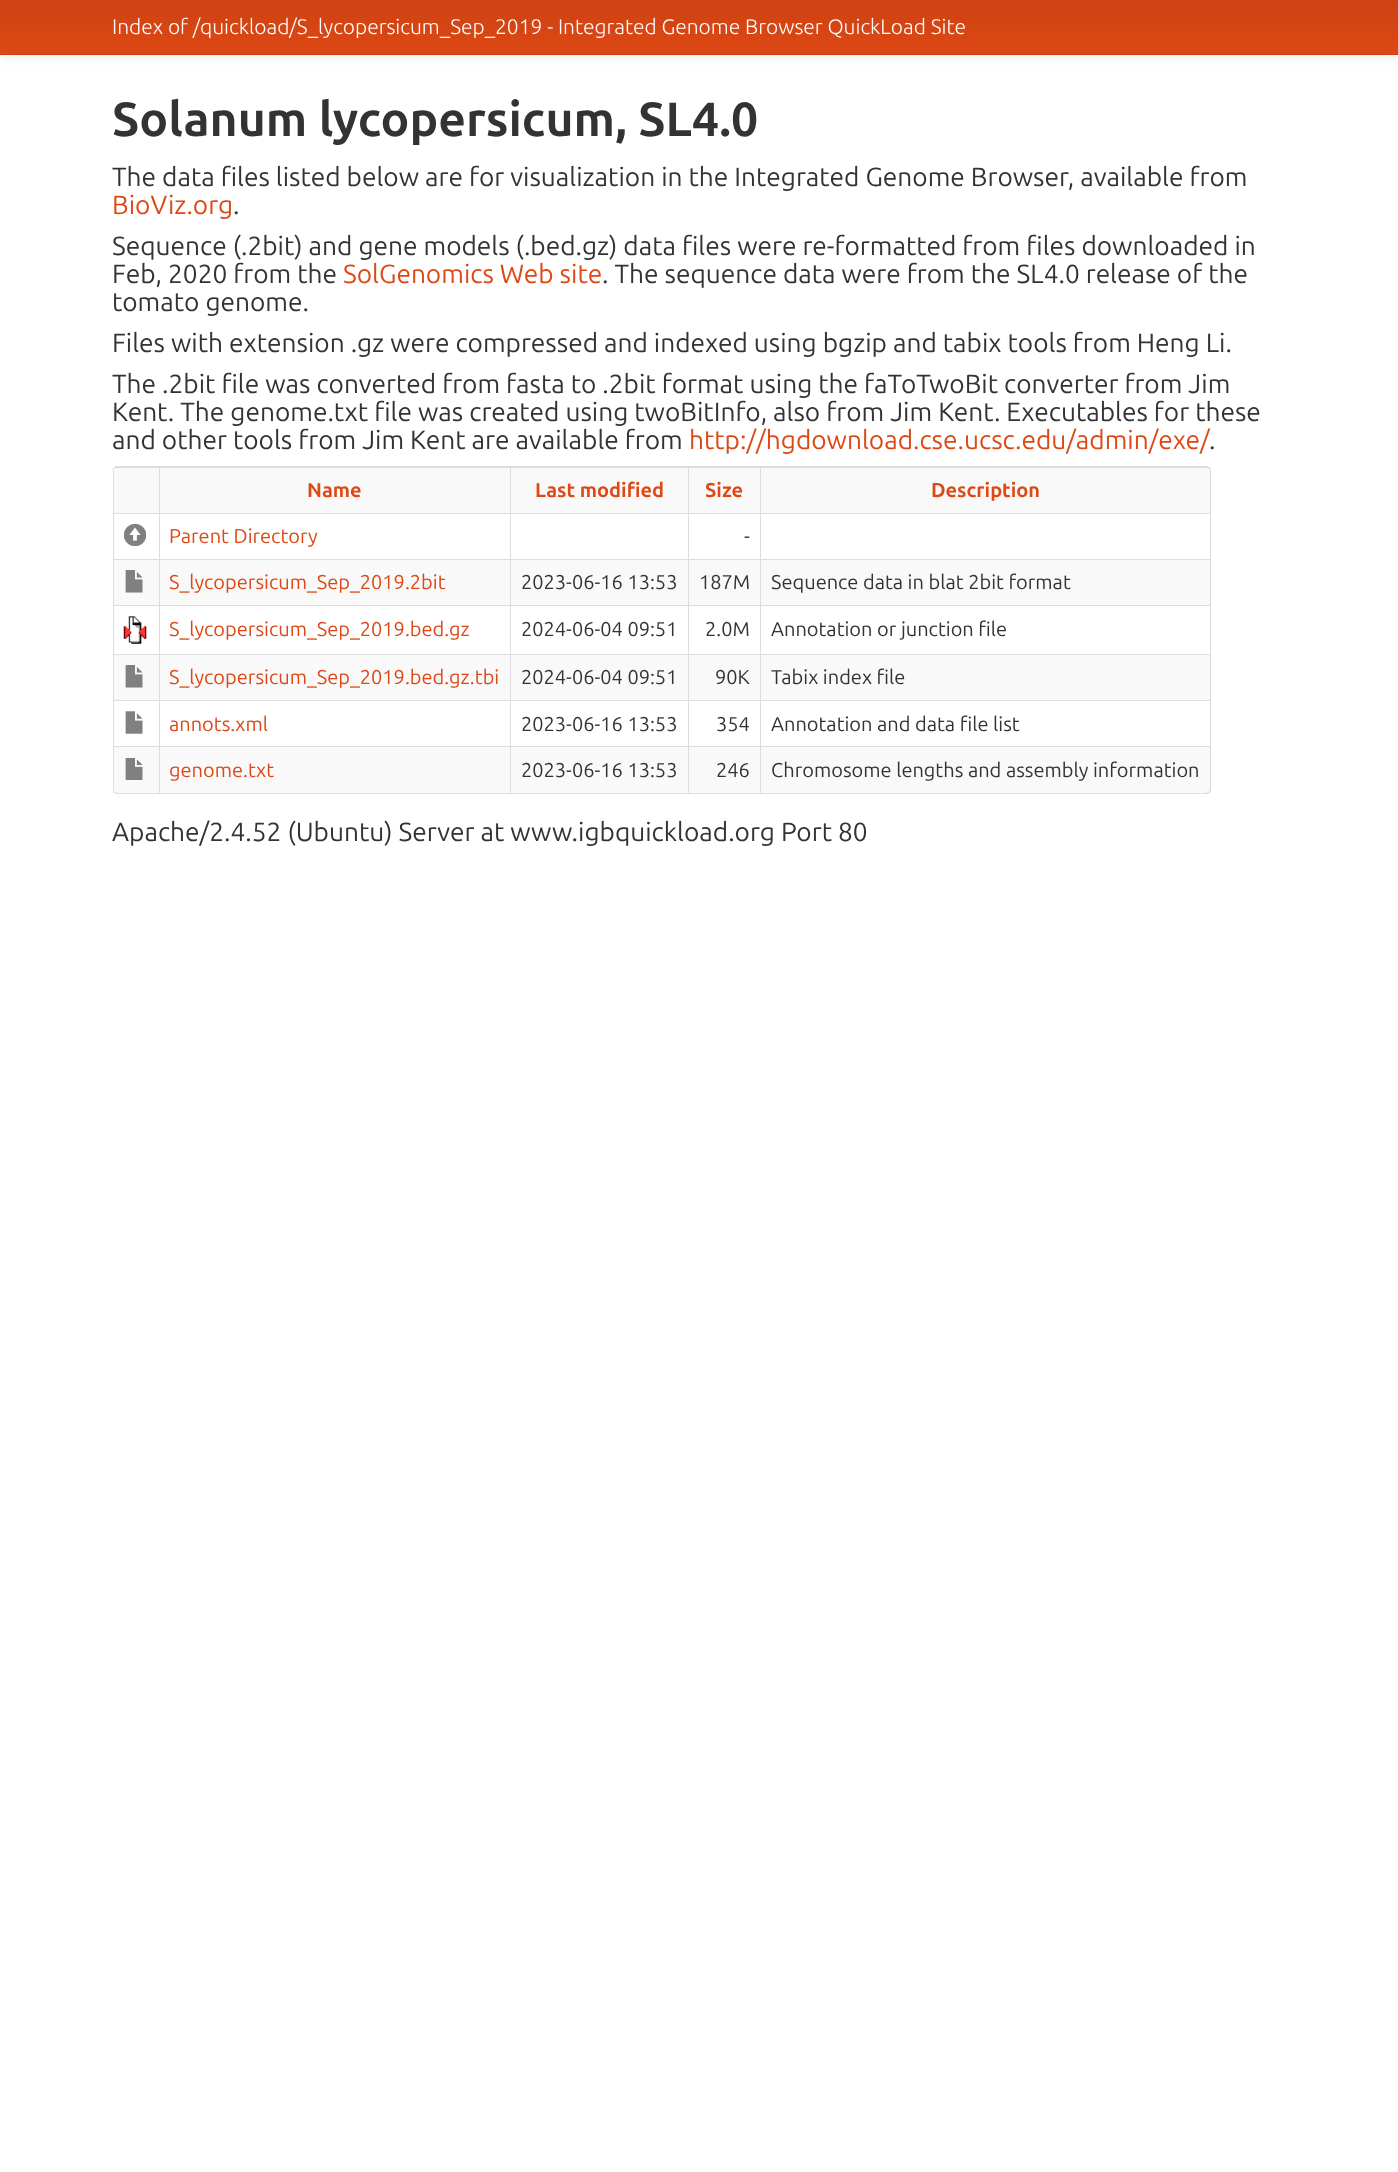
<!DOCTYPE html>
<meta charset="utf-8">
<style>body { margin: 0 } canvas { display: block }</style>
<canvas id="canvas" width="1398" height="2172"></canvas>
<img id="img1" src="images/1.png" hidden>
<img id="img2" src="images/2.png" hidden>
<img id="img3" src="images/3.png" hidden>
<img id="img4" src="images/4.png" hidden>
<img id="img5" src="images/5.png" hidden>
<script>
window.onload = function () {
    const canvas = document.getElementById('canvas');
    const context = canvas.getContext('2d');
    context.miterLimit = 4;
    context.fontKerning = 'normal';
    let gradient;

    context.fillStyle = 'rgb(255, 255, 255)';
    context.fillRect(0, 0, 1398, 2172);
    context.fillStyle = 'rgba(0, 0, 0, 0.1)';
    context.filter = 'blur(6px)';
    context.beginPath();
    context.rect(0, 1, 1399, 55);
    context.fill();
    context.filter = 'none';
    gradient = context.createLinearGradient(699, 0, 699, 54);
    gradient.addColorStop(0, 'rgb(206, 66, 19)');
    gradient.addColorStop(1, 'rgb(221, 72, 20)');
    context.fillStyle = gradient;
    context.fillRect(0, 0, 1398, 54);
    context.fillStyle = 'rgb(198, 64, 18)';
    context.fillRect(0, 54, 1398, 1);
    context.fillStyle = 'rgb(221, 221, 221)';
    context.beginPath();
    context.moveTo(118, 466);
    context.lineTo(1206, 466);
    context.bezierCurveTo(1209, 466, 1211, 468, 1211, 471);
    context.lineTo(1211, 789);
    context.bezierCurveTo(1211, 792, 1209, 794, 1206, 794);
    context.lineTo(118, 794);
    context.bezierCurveTo(115, 794, 112, 792, 112, 789);
    context.lineTo(112, 471);
    context.bezierCurveTo(112, 468, 115, 466, 118, 466);
    context.closePath();
    context.moveTo(118, 468);
    context.lineTo(1206, 468);
    context.bezierCurveTo(1208, 468, 1210, 469, 1210, 471);
    context.lineTo(1210, 789);
    context.bezierCurveTo(1210, 791, 1208, 792, 1206, 792);
    context.lineTo(118, 792);
    context.bezierCurveTo(115, 792, 112, 791, 112, 789);
    context.lineTo(112, 471);
    context.bezierCurveTo(112, 469, 115, 468, 118, 468);
    context.closePath();
    context.fill('evenodd');
    context.fillStyle = 'rgb(249, 249, 249)';
    context.beginPath();
    context.roundRect(113, 468, 46, 45, [5, 0, 0, 0]);
    context.fill();
    context.fillStyle = 'rgb(221, 221, 221)';
    context.fillRect(113, 470, 1, 43);
    context.fillStyle = 'rgb(249, 249, 249)';
    context.fillRect(160, 468, 350, 45);
    context.fillStyle = 'rgb(221, 221, 221)';
    context.fillRect(159, 468, 1, 45);
    context.fillStyle = 'rgb(249, 249, 249)';
    context.fillRect(511, 468, 177, 45);
    context.fillStyle = 'rgb(221, 221, 221)';
    context.fillRect(510, 468, 1, 45);
    context.fillStyle = 'rgb(249, 249, 249)';
    context.fillRect(689, 468, 71, 45);
    context.fillStyle = 'rgb(221, 221, 221)';
    context.fillRect(688, 468, 1, 45);
    context.fillStyle = 'rgb(249, 249, 249)';
    context.beginPath();
    context.roundRect(760, 468, 450, 45, [0, 5, 0, 0]);
    context.fill();
    context.fillStyle = 'rgb(221, 221, 221)';
    context.fillRect(760, 468, 1, 45);
    context.fillRect(113, 513, 1097, 1);
    context.fillRect(113, 513, 1, 46);
    context.drawImage(document.getElementById('img1'), 124, 524, 22, 22);
    context.fillRect(159, 513, 1, 46);
    context.fillRect(510, 513, 1, 46);
    context.fillRect(688, 513, 1, 46);
    context.fillRect(760, 513, 1, 46);
    context.fillStyle = 'rgb(249, 249, 249)';
    context.fillRect(114, 560, 45, 45);
    context.fillStyle = 'rgb(221, 221, 221)';
    context.fillRect(113, 559, 1097, 1);
    context.fillRect(113, 559, 1, 46);
    context.drawImage(document.getElementById('img2'), 125, 570, 18, 23);
    context.fillStyle = 'rgb(249, 249, 249)';
    context.fillRect(160, 560, 350, 45);
    context.fillStyle = 'rgb(221, 221, 221)';
    context.fillRect(159, 559, 1, 46);
    context.fillStyle = 'rgb(249, 249, 249)';
    context.fillRect(511, 560, 177, 45);
    context.fillStyle = 'rgb(221, 221, 221)';
    context.fillRect(510, 559, 1, 46);
    context.fillStyle = 'rgb(249, 249, 249)';
    context.fillRect(689, 560, 71, 45);
    context.fillStyle = 'rgb(221, 221, 221)';
    context.fillRect(688, 559, 1, 46);
    context.fillStyle = 'rgb(249, 249, 249)';
    context.fillRect(761, 560, 449, 45);
    context.fillStyle = 'rgb(221, 221, 221)';
    context.fillRect(760, 559, 1, 46);
    context.fillRect(113, 605, 1097, 1);
    context.fillRect(113, 605, 1, 49);
    context.drawImage(document.getElementById('img3'), 123, 616, 24, 28);
    context.fillRect(159, 605, 1, 49);
    context.fillRect(510, 605, 1, 49);
    context.fillRect(688, 605, 1, 49);
    context.fillRect(760, 605, 1, 49);
    context.fillStyle = 'rgb(249, 249, 249)';
    context.fillRect(114, 655, 45, 45);
    context.fillStyle = 'rgb(221, 221, 221)';
    context.fillRect(113, 654, 1097, 1);
    context.fillRect(113, 654, 1, 46);
    context.drawImage(document.getElementById('img2'), 125, 665, 18, 23);
    context.fillStyle = 'rgb(249, 249, 249)';
    context.fillRect(160, 655, 350, 45);
    context.fillStyle = 'rgb(221, 221, 221)';
    context.fillRect(159, 654, 1, 46);
    context.fillStyle = 'rgb(249, 249, 249)';
    context.fillRect(511, 655, 177, 45);
    context.fillStyle = 'rgb(221, 221, 221)';
    context.fillRect(510, 654, 1, 46);
    context.fillStyle = 'rgb(249, 249, 249)';
    context.fillRect(689, 655, 71, 45);
    context.fillStyle = 'rgb(221, 221, 221)';
    context.fillRect(688, 654, 1, 46);
    context.fillStyle = 'rgb(249, 249, 249)';
    context.fillRect(761, 655, 449, 45);
    context.fillStyle = 'rgb(221, 221, 221)';
    context.fillRect(760, 654, 1, 46);
    context.fillRect(113, 700, 1097, 1);
    context.fillRect(113, 700, 1, 46);
    context.drawImage(document.getElementById('img4'), 125, 711, 18, 23);
    context.fillRect(159, 700, 1, 46);
    context.fillRect(510, 700, 1, 46);
    context.fillRect(688, 700, 1, 46);
    context.fillRect(760, 700, 1, 46);
    context.fillStyle = 'rgb(249, 249, 249)';
    context.beginPath();
    context.roundRect(113, 746, 46, 47, [0, 0, 0, 5]);
    context.fill();
    context.fillStyle = 'rgb(221, 221, 221)';
    context.fillRect(113, 746, 647, 1);
    context.fillRect(113, 746, 1, 44);
    context.drawImage(document.getElementById('img5'), 125, 758, 18, 22);
    context.fillStyle = 'rgb(249, 249, 249)';
    context.beginPath();
    context.roundRect(760, 746, 450, 47, [0, 0, 5, 0]);
    context.fill();
    context.fillStyle = 'rgb(221, 221, 221)';
    context.fillRect(760, 746, 450, 1);
    context.fillRect(760, 746, 1, 47);
    context.fillStyle = 'rgb(249, 249, 249)';
    context.fillRect(160, 747, 350, 46);
    context.fillStyle = 'rgb(221, 221, 221)';
    context.fillRect(159, 746, 1, 47);
    context.fillStyle = 'rgb(249, 249, 249)';
    context.fillRect(511, 747, 177, 46);
    context.fillStyle = 'rgb(221, 221, 221)';
    context.fillRect(510, 746, 1, 47);
    context.fillStyle = 'rgb(249, 249, 249)';
    context.fillRect(689, 747, 71, 46);
    context.fillStyle = 'rgb(221, 221, 221)';
    context.fillRect(688, 746, 1, 47);
    context.font = '300 21px Ubuntu';
    context.fillStyle = 'rgb(255, 255, 255)';
    context.fillText('Index of /quickload/S_lycopersicum_Sep_2019 - Integrated Genome Browser QuickLoad Site', 112, 34);
    context.font = 'bold 48.1px Ubuntu';
    context.fillStyle = 'rgb(51, 51, 51)';
    context.fillText('Solanum lycopersicum, SL4.0', 112, 136);
    context.font = '26.25px Ubuntu';
    context.fillText('The data files listed below are for visualization in the Integrated Genome Browser, available from', 112, 186);
    context.fillStyle = 'rgb(221, 72, 20)';
    context.fillText('BioViz.org', 112, 214);
    context.fillStyle = 'rgb(51, 51, 51)';
    context.fillText('.', 233, 214);
    context.fillText('Sequence (.2bit) and gene models (.bed.gz) data files were re-formatted from files downloaded in', 112, 255);
    context.fillText('Feb, 2020 from the', 112, 283);
    context.fillStyle = 'rgb(221, 72, 20)';
    context.fillText('SolGenomics Web site', 343, 283);
    context.fillStyle = 'rgb(51, 51, 51)';
    context.fillText('. The sequence data were from the SL4.0 release of the', 602, 283);
    context.fillText('tomato genome.', 112, 311);
    context.fillText('Files with extension .gz were compressed and indexed using bgzip and tabix tools from Heng Li.', 112, 352);
    context.fillText('The .2bit file was converted from fasta to .2bit format using the faToTwoBit converter from Jim', 112, 393);
    context.fillText('Kent. The genome.txt file was created using twoBitInfo, also from Jim Kent. Executables for these', 112, 421);
    context.fillText('and other tools from Jim Kent are available from', 112, 449);
    context.fillStyle = 'rgb(221, 72, 20)';
    context.fillText('http://hgdownload.cse.ucsc.edu/admin/exe/', 689, 449);
    context.fillStyle = 'rgb(51, 51, 51)';
    context.fillText('.', 1209, 449);
    context.font = 'bold 20px Ubuntu';
    context.fillStyle = 'rgb(221, 72, 20)';
    context.fillText('Name', 307, 497);
    context.fillText('Last modified', 535, 497);
    context.fillText('Size', 705, 497);
    context.fillText('Description', 931, 497);
    context.font = '20px Ubuntu';
    context.fillText('Parent Directory', 169, 543);
    context.fillStyle = 'rgb(51, 51, 51)';
    context.fillText('-', 744, 543);
    context.fillStyle = 'rgb(221, 72, 20)';
    context.fillText('S_lycopersicum_Sep_2019.2bit', 169, 589);
    context.fillStyle = 'rgb(51, 51, 51)';
    context.fillText('2023-06-16 13:53', 521, 589);
    context.fillText('187M', 699, 589);
    context.fillText('Sequence data in blat 2bit format', 771, 589);
    context.fillStyle = 'rgb(221, 72, 20)';
    context.fillText('S_lycopersicum_Sep_2019.bed.gz', 169, 636);
    context.fillStyle = 'rgb(51, 51, 51)';
    context.fillText('2024-06-04 09:51', 521, 636);
    context.fillText('2.0M', 705, 636);
    context.fillText('Annotation or junction file', 771, 636);
    context.fillStyle = 'rgb(221, 72, 20)';
    context.fillText('S_lycopersicum_Sep_2019.bed.gz.tbi', 169, 684);
    context.fillStyle = 'rgb(51, 51, 51)';
    context.fillText('2024-06-04 09:51', 521, 684);
    context.fillText('90K', 715, 684);
    context.fillText('Tabix index file', 771, 684);
    context.fillStyle = 'rgb(221, 72, 20)';
    context.fillText('annots.xml', 169, 731);
    context.fillStyle = 'rgb(51, 51, 51)';
    context.fillText('2023-06-16 13:53', 521, 731);
    context.fillText('354', 716, 731);
    context.fillText('Annotation and data file list', 771, 731);
    context.fillText('Chromosome lengths and assembly information', 771, 777);
    context.fillStyle = 'rgb(221, 72, 20)';
    context.fillText('genome.txt', 169, 777);
    context.fillStyle = 'rgb(51, 51, 51)';
    context.fillText('2023-06-16 13:53', 521, 777);
    context.fillText('246', 716, 777);
    context.font = '26.25px Ubuntu';
    context.fillText('Apache/2.4.52 (Ubuntu) Server at www.igbquickload.org Port 80', 112, 841);
};
</script>
